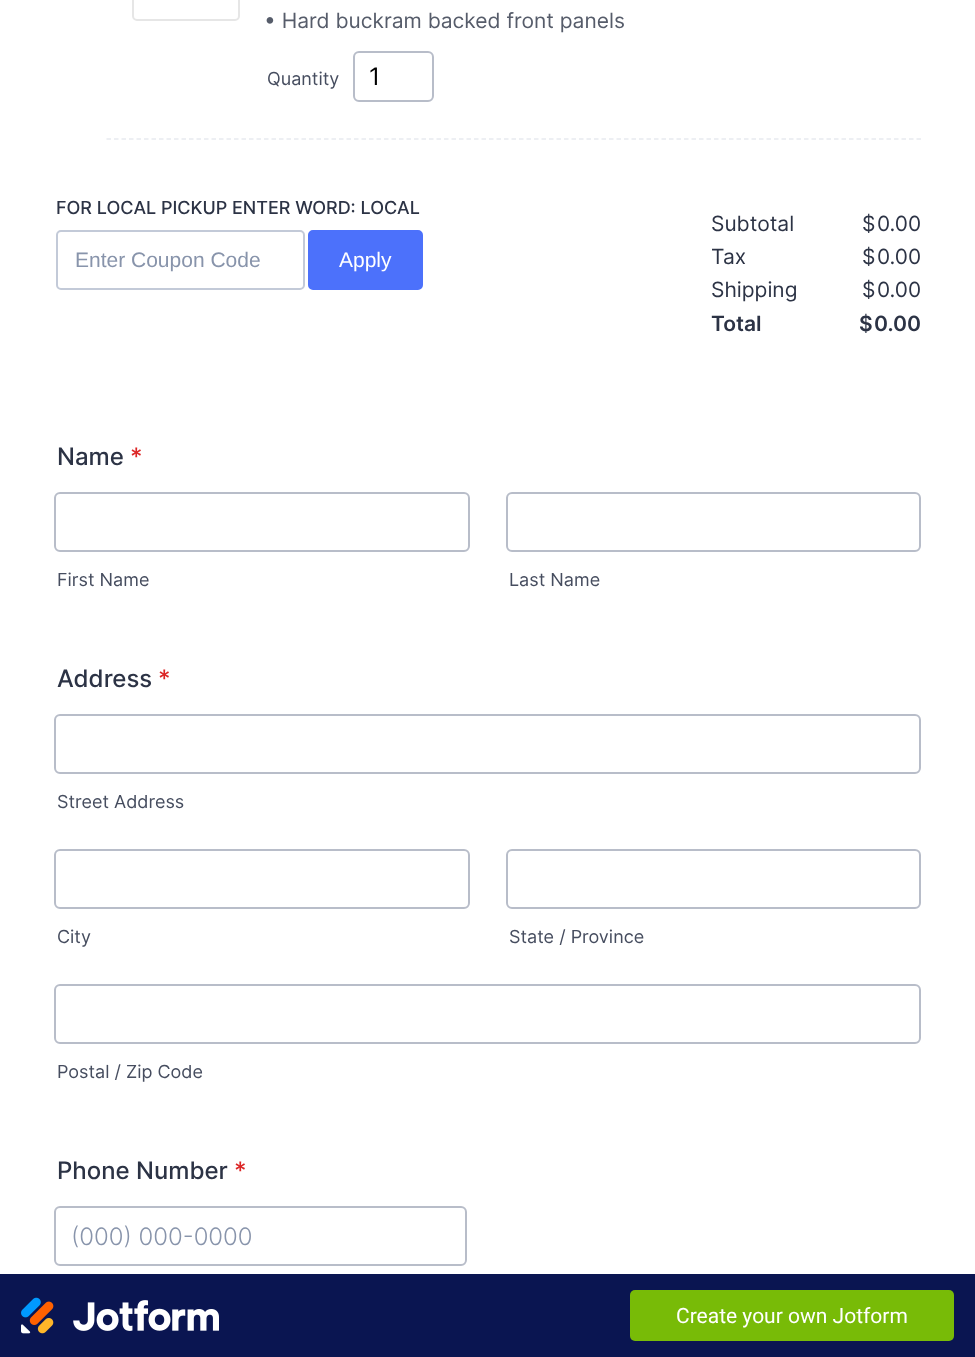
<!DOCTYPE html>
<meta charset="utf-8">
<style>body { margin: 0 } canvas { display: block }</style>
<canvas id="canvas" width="975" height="1357"></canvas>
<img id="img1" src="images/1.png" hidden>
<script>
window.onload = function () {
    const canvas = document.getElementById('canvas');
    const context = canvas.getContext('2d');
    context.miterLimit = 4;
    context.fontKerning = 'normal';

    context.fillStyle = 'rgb(255, 255, 255)';
    context.fillRect(0, 0, 975, 1357);
    context.beginPath();
    context.roundRect(133, -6, 106, 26, 4);
    context.strokeStyle = 'rgb(230, 230, 230)';
    context.lineWidth = 2;
    context.stroke();
    context.beginPath();
    context.roundRect(354, 52, 79, 49, 5);
    context.strokeStyle = 'rgb(184, 189, 201)';
    context.stroke();
    context.beginPath();
    context.moveTo(106.5, 139);
    context.lineTo(921, 139);
    context.strokeStyle = 'rgb(231, 234, 240)';
    context.lineWidth = 1.5;
    context.setLineDash([4.5, 3]);
    context.stroke();
    context.beginPath();
    context.roundRect(57, 231, 247, 58, 4);
    context.strokeStyle = 'rgb(195, 202, 216)';
    context.lineWidth = 2;
    context.setLineDash([]);
    context.stroke();
    context.fillStyle = 'rgb(76, 113, 251)';
    context.beginPath();
    context.roundRect(309, 231, 113, 58, 4);
    context.fill();
    context.strokeStyle = 'rgb(76, 113, 251)';
    context.stroke();
    context.beginPath();
    context.roundRect(55, 493, 414, 58, 5);
    context.strokeStyle = 'rgb(184, 189, 201)';
    context.stroke();
    context.beginPath();
    context.roundRect(507, 493, 413, 58, 5);
    context.stroke();
    context.beginPath();
    context.roundRect(55, 715, 865, 58, 5);
    context.stroke();
    context.beginPath();
    context.roundRect(55, 850, 414, 58, 5);
    context.stroke();
    context.beginPath();
    context.roundRect(507, 850, 413, 58, 5);
    context.stroke();
    context.beginPath();
    context.roundRect(55, 985, 865, 58, 5);
    context.stroke();
    context.beginPath();
    context.roundRect(55, 1207, 411, 58, 5);
    context.stroke();
    context.fillStyle = 'rgb(10, 21, 81)';
    context.fillRect(0, 1274, 975, 83);
    context.drawImage(document.getElementById('img1'), 21, 1297, 198, 37);
    context.fillStyle = 'rgb(120, 187, 7)';
    context.beginPath();
    context.roundRect(630, 1290, 324, 51, 5);
    context.fill();
    context.font = '21px Inter';
    context.fillStyle = 'rgb(86, 92, 106)';
    context.fillText('• Hard buckram backed front panels', 264, 28);
    context.font = '18px Inter';
    context.fillStyle = 'rgb(70, 77, 95)';
    context.fillText('Quantity', 267, 85);
    context.font = '24px Inter';
    context.fillStyle = 'rgb(0, 0, 0)';
    context.fillText('1', 369, 85);
    context.font = '500 18px Inter';
    context.fillStyle = 'rgb(44, 51, 69)';
    context.fillText('FOR LOCAL PICKUP ENTER WORD: LOCAL', 56, 214);
    context.font = '21px Liberation Sans';
    context.fillStyle = 'rgb(136, 148, 171)';
    context.fillText('Enter Coupon Code', 75, 267);
    context.fillStyle = 'rgb(255, 255, 255)';
    context.fillText('Apply', 339, 267);
    context.font = '21px Inter';
    context.fillStyle = 'rgb(44, 51, 69)';
    context.fillText('Subtotal', 711, 231);
    context.fillText('$', 862, 231);
    context.fillText('0.00', 877, 231);
    context.fillText('Tax', 711, 264);
    context.fillText('$', 862, 264);
    context.fillText('0.00', 877, 264);
    context.fillText('Shipping', 711, 297);
    context.fillText('$', 862, 297);
    context.fillText('0.00', 877, 297);
    context.font = '600 21px Inter';
    context.fillText('Total', 711, 331);
    context.fillText('$', 859, 331);
    context.fillText('0.00', 874, 331);
    context.font = '500 24px Inter';
    context.fillText('Name', 57, 465);
    context.fillStyle = 'rgb(220, 38, 38)';
    context.fillText('*', 130, 465);
    context.font = '18px Inter';
    context.fillStyle = 'rgb(70, 77, 95)';
    context.fillText('First Name', 57, 586);
    context.fillText('Last Name', 509, 586);
    context.font = '500 24px Inter';
    context.fillStyle = 'rgb(44, 51, 69)';
    context.fillText('Address', 57, 687);
    context.fillStyle = 'rgb(220, 38, 38)';
    context.fillText('*', 158, 687);
    context.font = '18px Inter';
    context.fillStyle = 'rgb(70, 77, 95)';
    context.fillText('Street Address', 57, 808);
    context.fillText('City', 57, 943);
    context.fillText('State / Province', 509, 943);
    context.fillText('Postal / Zip Code', 57, 1078);
    context.font = '500 24px Inter';
    context.fillStyle = 'rgb(44, 51, 69)';
    context.fillText('Phone Number', 57, 1179);
    context.fillStyle = 'rgb(220, 38, 38)';
    context.fillText('*', 234, 1179);
    context.font = '300 24px Inter';
    context.fillStyle = 'rgb(136, 148, 171)';
    context.fillText('(000) 000-0000', 71, 1245);
    context.font = '21px Roboto';
    context.fillStyle = 'rgb(255, 255, 255)';
    context.fillText('Create your own Jotform', 676, 1323);
};
</script>
